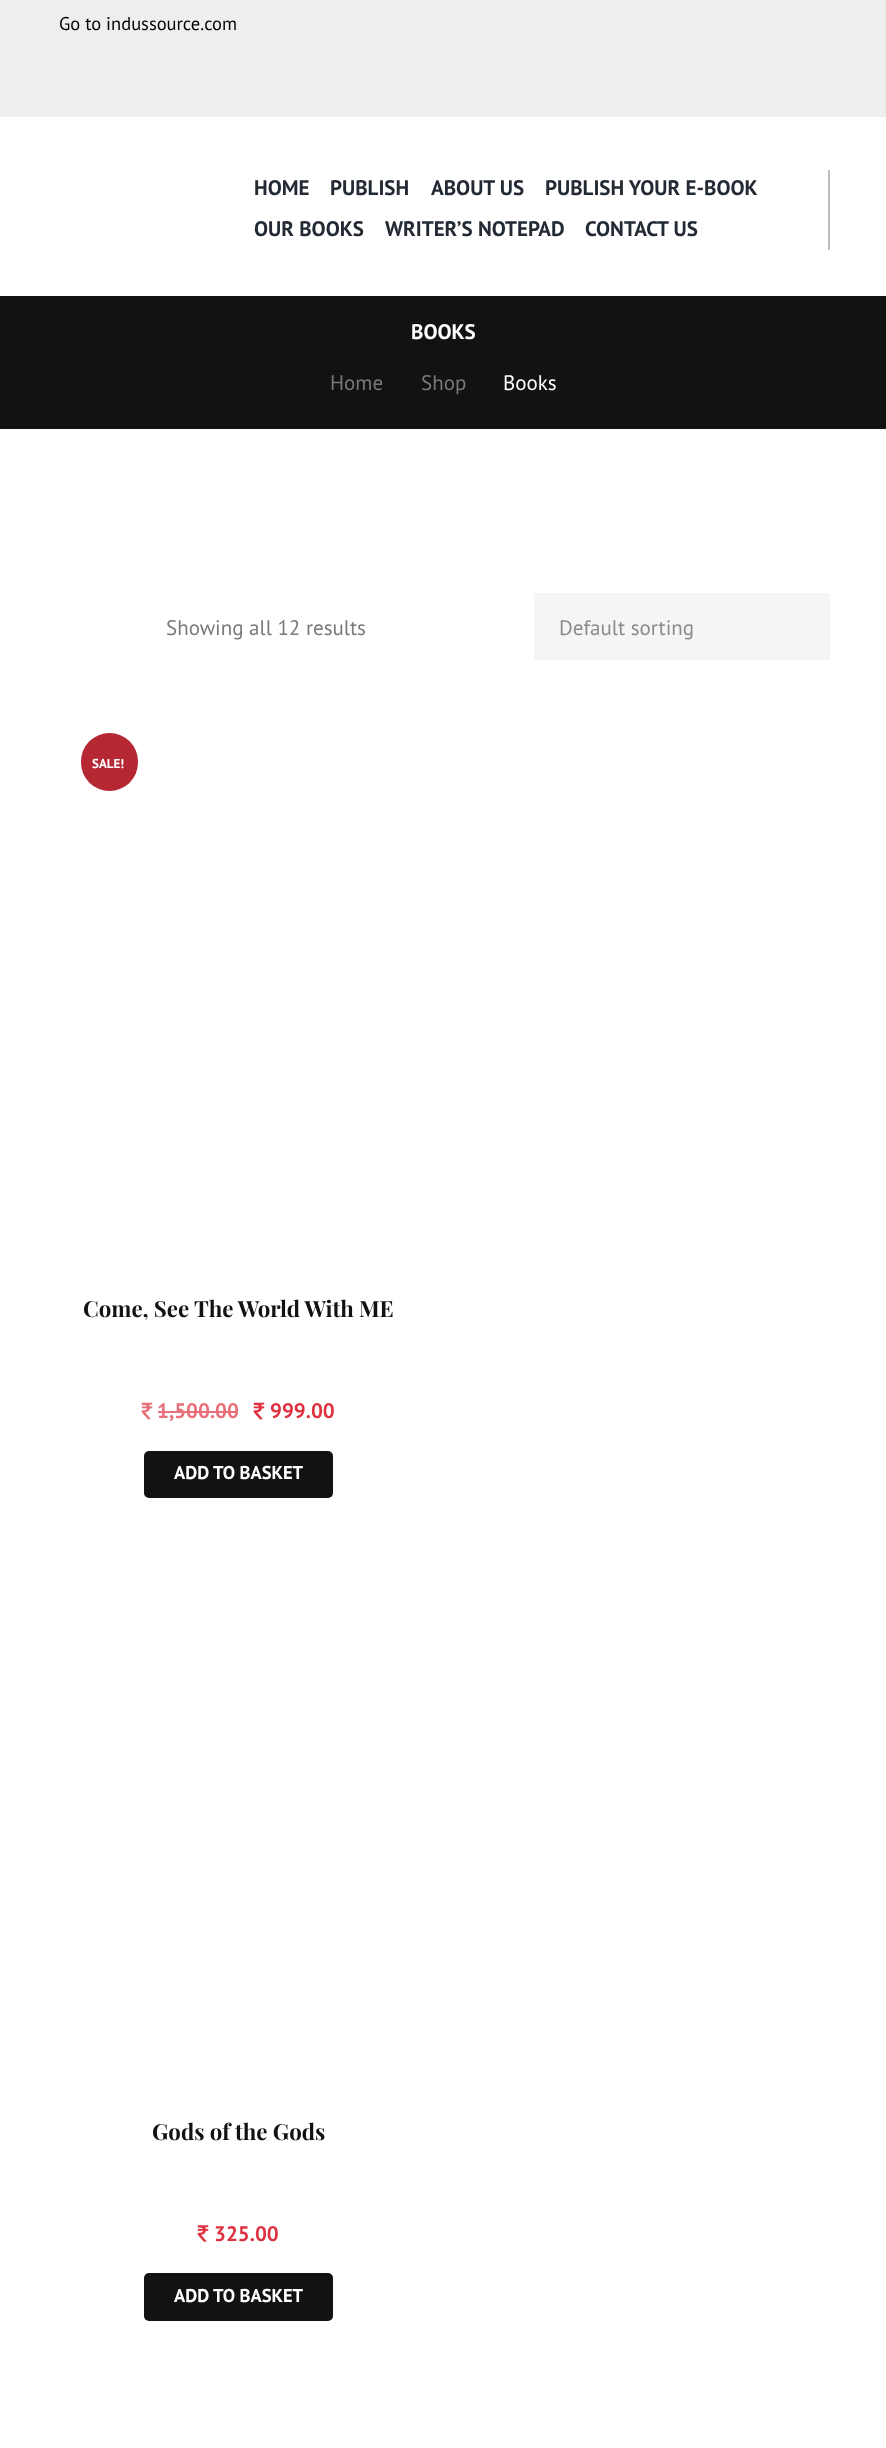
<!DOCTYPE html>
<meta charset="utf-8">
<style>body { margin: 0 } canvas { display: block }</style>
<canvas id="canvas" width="886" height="2448"></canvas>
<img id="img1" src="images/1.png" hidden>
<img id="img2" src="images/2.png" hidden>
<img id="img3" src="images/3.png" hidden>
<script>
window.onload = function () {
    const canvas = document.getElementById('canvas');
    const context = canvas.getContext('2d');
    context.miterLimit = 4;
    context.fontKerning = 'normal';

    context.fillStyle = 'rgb(255, 255, 255)';
    context.fillRect(0, 0, 886, 2448);
    context.fillStyle = 'rgb(238, 238, 238)';
    context.fillRect(0, 0, 886, 117);
    context.fillStyle = 'rgb(188, 188, 188)';
    context.fillRect(828, 170, 2, 80);
    context.fillStyle = 'rgb(18, 18, 18)';
    context.fillRect(0, 296, 886, 133);
    context.fillStyle = 'rgb(245, 245, 244)';
    context.fillRect(534, 593, 296, 67);
    context.fillStyle = 'rgb(181, 39, 51)';
    context.beginPath();
    context.roundRect(81, 733, 57, 58, 28.5);
    context.fill();
    context.drawImage(document.getElementById('img1'), 141, 1402, 12, 18);
    context.fillStyle = 'rgb(232, 112, 122)';
    context.fillRect(158, 1411, 80, 2);
    context.drawImage(document.getElementById('img2'), 253, 1402, 12, 18);
    context.fillStyle = 'rgb(18, 18, 18)';
    context.beginPath();
    context.roundRect(144, 1451, 189, 47, 5);
    context.fill();
    context.drawImage(document.getElementById('img3'), 197, 2225, 12, 17);
    context.beginPath();
    context.roundRect(144, 2273, 189, 48, 5);
    context.fill();
    context.font = '18.5px PT Sans';
    context.fillStyle = 'rgb(0, 0, 0)';
    context.fillText('Go to indussource.com', 59, 30);
    context.font = 'bold 21px PT Sans';
    context.fillStyle = 'rgb(35, 42, 52)';
    context.fillText('HOME', 254, 195);
    context.fillText('PUBLISH', 330, 195);
    context.fillText('ABOUT US', 431, 195);
    context.fillText('PUBLISH YOUR E-BOOK', 545, 195);
    context.fillText('OUR BOOKS', 254, 236);
    context.fillText('WRITER’S NOTEPAD', 385, 236);
    context.fillText('CONTACT US', 585, 236);
    context.fillStyle = 'rgb(255, 255, 255)';
    context.fillText('BOOKS', 411, 339);
    context.font = '21px PT Sans';
    context.fillStyle = 'rgb(121, 121, 121)';
    context.fillText('Home', 330, 390);
    context.fillText('Shop', 421, 390);
    context.fillStyle = 'rgb(255, 255, 255)';
    context.fillText('Books', 503, 390);
    context.fillStyle = 'rgb(121, 121, 121)';
    context.fillText('Showing all 12 results', 166, 635);
    context.fillStyle = 'rgb(138, 138, 138)';
    context.fillText('Default sorting', 559, 635);
    context.font = 'bold 13px PT Sans';
    context.fillStyle = 'rgb(255, 255, 255)';
    context.fillText('SALE!', 92, 768);
    context.font = 'bold 22.25px Playfair Display';
    context.fillStyle = 'rgb(18, 18, 18)';
    context.fillText('Come, See The World With ME', 83, 1317);
    context.font = 'bold 21px PT Sans';
    context.fillStyle = 'rgb(232, 112, 122)';
    context.fillText('1,500.00', 157, 1418);
    context.fillStyle = 'rgb(222, 50, 65)';
    context.fillText('999.00', 270, 1418);
    context.font = 'bold 18.5px PT Sans';
    context.fillStyle = 'rgb(255, 255, 255)';
    context.fillText('ADD TO BASKET', 174, 1479);
    context.font = 'bold 22.25px Playfair Display';
    context.fillStyle = 'rgb(18, 18, 18)';
    context.fillText('Gods of the Gods', 152, 2140);
    context.font = 'bold 21px PT Sans';
    context.fillStyle = 'rgb(222, 50, 65)';
    context.fillText('325.00', 214, 2241);
    context.font = 'bold 18.5px PT Sans';
    context.fillStyle = 'rgb(255, 255, 255)';
    context.fillText('ADD TO BASKET', 174, 2302);
};
</script>
